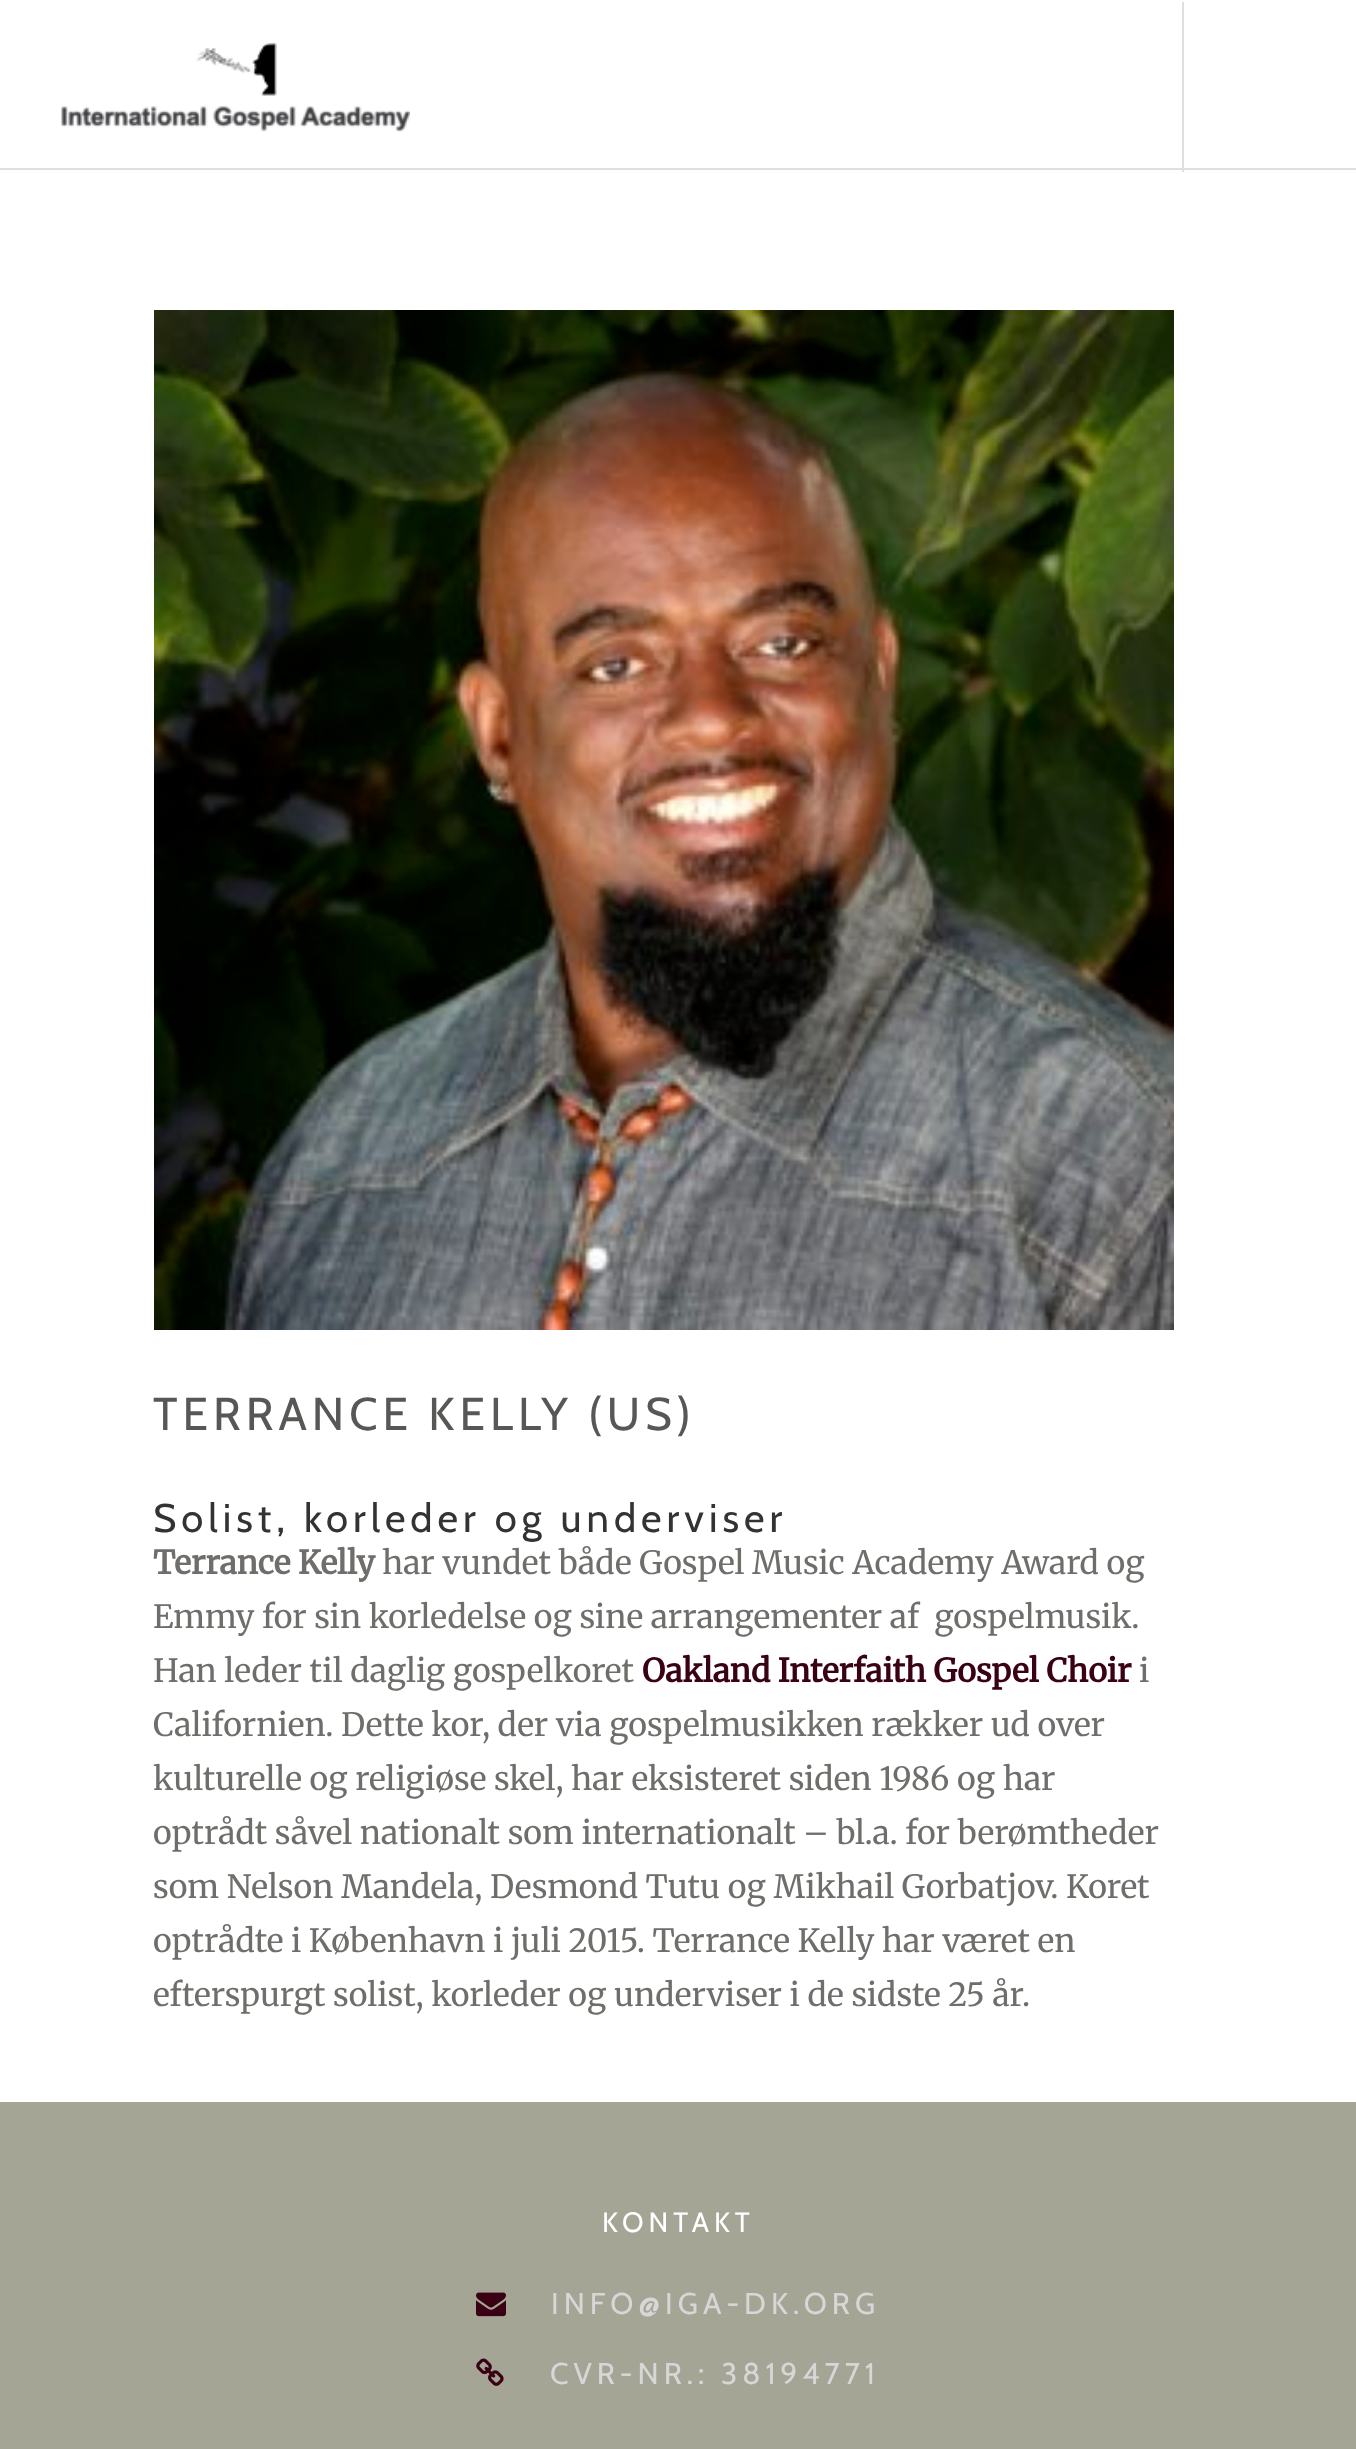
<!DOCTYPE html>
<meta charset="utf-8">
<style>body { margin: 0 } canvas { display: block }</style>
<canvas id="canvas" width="1356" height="2449"></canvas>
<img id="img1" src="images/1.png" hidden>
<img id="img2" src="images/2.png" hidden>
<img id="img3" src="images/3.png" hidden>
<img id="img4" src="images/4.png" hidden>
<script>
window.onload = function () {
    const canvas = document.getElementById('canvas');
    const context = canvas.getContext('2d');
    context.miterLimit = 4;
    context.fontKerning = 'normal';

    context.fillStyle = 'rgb(255, 255, 255)';
    context.fillRect(0, 0, 1356, 2449);
    context.fillStyle = 'rgb(223, 223, 223)';
    context.fillRect(0, 168, 1356, 2);
    context.drawImage(document.getElementById('img1'), 61, 43, 349, 89);
    context.fillRect(1182, 2, 2, 170);
    context.drawImage(document.getElementById('img2'), 154, 310, 1020, 1020);
    context.fillStyle = 'rgb(165, 165, 149)';
    context.fillRect(0, 2102, 1356, 347);
    context.drawImage(document.getElementById('img3'), 476, 2292, 30, 25);
    context.drawImage(document.getElementById('img4'), 476, 2358, 28, 28);
    context.letterSpacing = '5px';
    context.font = '46px Cabin';
    context.fillStyle = 'rgb(87, 87, 86)';
    context.fillText('TERRANCE KELLY (US)', 153, 1430);
    context.font = '40px Cabin';
    context.fillStyle = 'rgb(51, 51, 51)';
    context.fillText('Solist, korleder og underviser', 153, 1532);
    context.letterSpacing = '0px';
    context.font = 'bold 32px Merriweather';
    context.fillStyle = 'rgb(111, 110, 107)';
    context.fillText('Terrance Kelly', 153, 1574);
    context.font = '300 32px Merriweather';
    context.fillText('har vundet både Gospel Music Academy Award og', 382, 1574);
    context.fillText('Emmy for sin korledelse og sine arrangementer af  gospelmusik.', 153, 1628);
    context.fillText('Han leder til daglig gospelkoret', 153, 1682);
    context.font = 'bold 32px Merriweather';
    context.fillStyle = 'rgb(58, 0, 19)';
    context.fillText('Oakland Interfaith Gospel Choir', 642, 1682);
    context.font = '300 32px Merriweather';
    context.fillStyle = 'rgb(111, 110, 107)';
    context.fillText('i', 1139, 1682);
    context.fillText('Californien. Dette kor, der via gospelmusikken rækker ud over', 153, 1736);
    context.fillText('kulturelle og religiøse skel, har eksisteret siden 1986 og har', 153, 1790);
    context.fillText('optrådt såvel nationalt som internationalt – bl.a. for berømtheder', 153, 1844);
    context.fillText('som Nelson Mandela, Desmond Tutu og Mikhail Gorbatjov. Koret', 153, 1898);
    context.fillText('optrådte i København i juli 2015. Terrance Kelly har været en', 153, 1952);
    context.fillText('efterspurgt solist, korleder og underviser i de sidste 25 år.', 153, 2006);
    context.letterSpacing = '5px';
    context.font = '28px Cabin';
    context.fillStyle = 'rgb(255, 255, 255)';
    context.fillText('KONTAKT', 602, 2232);
    context.font = '30px Cabin';
    context.fillStyle = 'rgb(215, 215, 215)';
    context.fillText('INFO@IGA-DK.ORG', 551, 2314);
    context.fillText('CVR-NR.: 38194771', 550, 2384);
};
</script>
